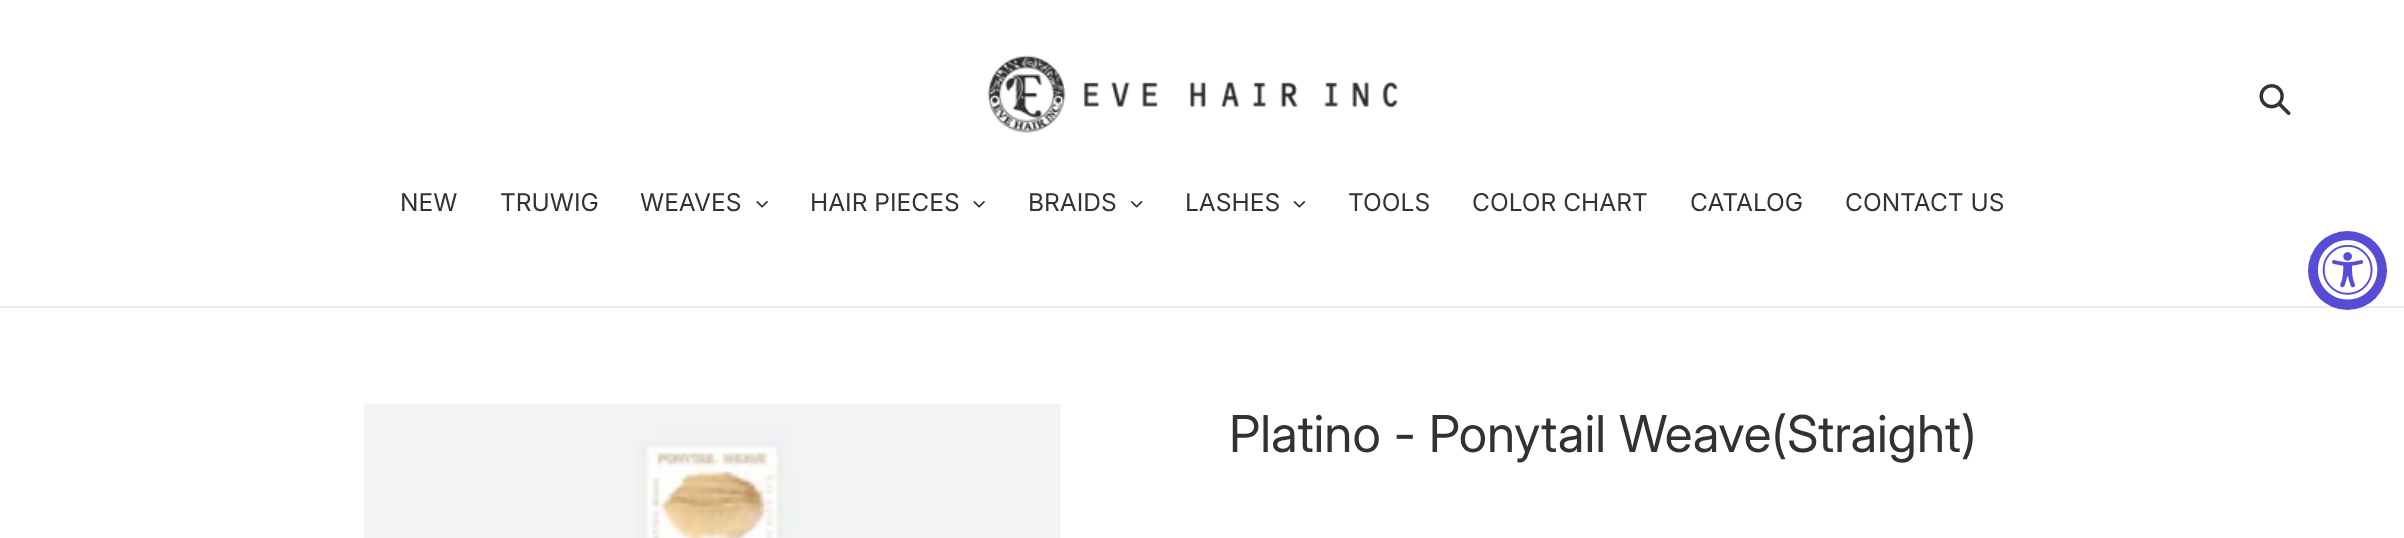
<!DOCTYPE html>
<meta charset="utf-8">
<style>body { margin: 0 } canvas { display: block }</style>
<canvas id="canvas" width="2404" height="538"></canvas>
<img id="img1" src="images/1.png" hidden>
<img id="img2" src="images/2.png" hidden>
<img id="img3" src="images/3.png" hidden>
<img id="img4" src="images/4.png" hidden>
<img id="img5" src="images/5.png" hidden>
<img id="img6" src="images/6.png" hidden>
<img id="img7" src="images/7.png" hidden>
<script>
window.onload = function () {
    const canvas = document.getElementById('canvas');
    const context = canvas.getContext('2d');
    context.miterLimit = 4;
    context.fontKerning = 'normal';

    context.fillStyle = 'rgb(255, 255, 255)';
    context.fillRect(0, 0, 2404, 538);
    context.drawImage(document.getElementById('img1'), 987, 55, 411, 78);
    context.drawImage(document.getElementById('img2'), 2259, 84, 32, 31);
    context.fillStyle = 'rgb(235, 235, 235)';
    context.fillRect(0, 306, 2404, 2);
    context.drawImage(document.getElementById('img3'), 756, 201, 12, 7);
    context.drawImage(document.getElementById('img3'), 973, 201, 12, 7);
    context.drawImage(document.getElementById('img4'), 1131, 201, 12, 7);
    context.drawImage(document.getElementById('img5'), 1293, 201, 13, 7);
    context.fillStyle = 'rgb(87, 76, 213)';
    context.beginPath();
    context.arc(2347.5, 270.5, 39.5, 0, 2 * Math.PI);
    context.fill();
    context.drawImage(document.getElementById('img6'), 2317, 240, 61, 60);
    context.drawImage(document.getElementById('img7'), 364, 404, 697, 134);
    context.font = '24.5px Inter';
    context.fillStyle = 'rgb(51, 50, 50)';
    context.fillText('NEW', 400, 211);
    context.fillText('TRUWIG', 500, 211);
    context.fillText('WEAVES', 640, 211);
    context.fillText('HAIR PIECES', 810, 211);
    context.fillText('BRAIDS', 1028, 211);
    context.fillText('LASHES', 1185, 211);
    context.fillText('TOOLS', 1348, 211);
    context.fillText('COLOR CHART', 1472, 211);
    context.fillText('CATALOG', 1690, 211);
    context.fillText('CONTACT US', 1845, 211);
    context.font = '50.75px "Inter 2"';
    context.fillText('Platino - Ponytail Weave(Straight)', 1229, 452);
};
</script>
